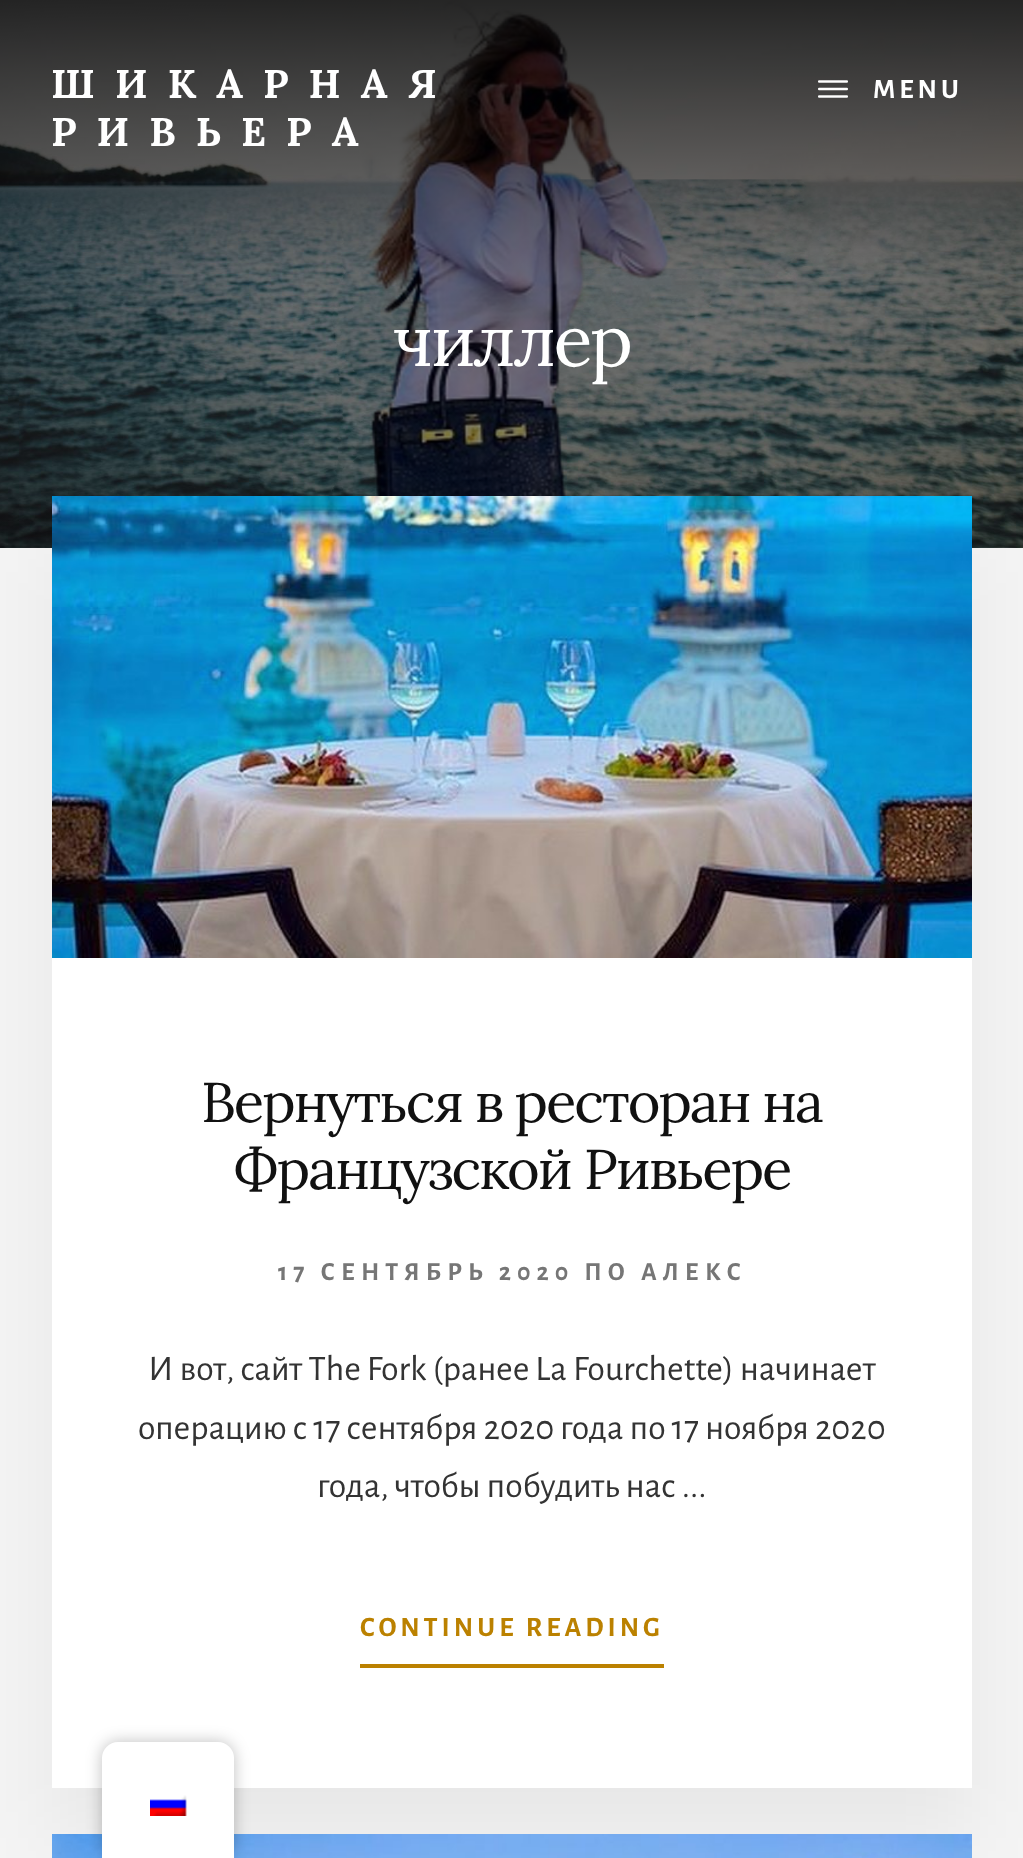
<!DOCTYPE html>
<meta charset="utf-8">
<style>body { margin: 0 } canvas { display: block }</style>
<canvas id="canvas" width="1023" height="1858"></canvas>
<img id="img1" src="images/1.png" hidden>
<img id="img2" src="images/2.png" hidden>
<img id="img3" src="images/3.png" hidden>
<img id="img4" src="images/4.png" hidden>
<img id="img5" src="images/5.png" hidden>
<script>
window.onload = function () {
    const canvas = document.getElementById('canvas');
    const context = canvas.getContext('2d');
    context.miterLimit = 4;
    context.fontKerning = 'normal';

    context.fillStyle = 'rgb(244, 244, 244)';
    context.fillRect(0, 0, 1023, 1858);
    context.drawImage(document.getElementById('img1'), 0, 0, 1023, 548);
    context.drawImage(document.getElementById('img2'), 818, 80, 30, 18);
    context.fillStyle = 'rgba(0, 0, 0, 0.05)';
    context.filter = 'blur(40px)';
    context.beginPath();
    context.rect(52, 546, 920, 1292);
    context.fill();
    context.filter = 'none';
    context.fillStyle = 'rgb(255, 255, 255)';
    context.fillRect(52, 958, 920, 830);
    context.drawImage(document.getElementById('img3'), 52, 496, 920, 462);
    context.fillStyle = 'rgb(187, 129, 0)';
    context.fillRect(360, 1664, 304, 4);
    context.drawImage(document.getElementById('img4'), 52, 1834, 920, 24);
    context.fillStyle = 'rgba(0, 0, 0, 0.25)';
    context.filter = 'blur(8px)';
    context.beginPath();
    context.roundRect(102, 1742, 132, 116, 16);
    context.fill();
    context.filter = 'none';
    context.fillStyle = 'rgb(255, 255, 255)';
    context.beginPath();
    context.roundRect(102, 1742, 132, 116, [16, 16, 0, 0]);
    context.fill();
    context.drawImage(document.getElementById('img5'), 150, 1795, 37, 21);
    context.letterSpacing = '20px';
    context.font = 'bold 40px Lora';
    context.fillText('ШИКАРНАЯ', 51, 98);
    context.fillText('РИВЬЕРА', 51, 146);
    context.letterSpacing = '4px';
    context.font = 'bold 28px Alegreya Sans';
    context.fillText('MENU', 873, 98);
    context.letterSpacing = '-2.5px';
    context.font = '72px Lora';
    context.fillText('чиллер', 393, 366);
    context.letterSpacing = '-2px';
    context.font = '56px Lora';
    context.fillStyle = 'rgb(17, 17, 17)';
    context.fillText('Вернуться в ресторан на', 201, 1122);
    context.fillText('Французской Ривьере', 233, 1189);
    context.letterSpacing = '6px';
    context.font = 'bold 26px Alegreya Sans';
    context.fillStyle = 'rgb(118, 118, 118)';
    context.fillText('17 СЕНТЯБРЬ 2020 ПО АЛЕКС', 278, 1280);
    context.letterSpacing = '0px';
    context.font = '36px Alegreya Sans';
    context.fillStyle = 'rgb(51, 51, 51)';
    context.fillText('И вот, сайт The Fork (ранее La Fourchette) начинает', 148, 1380);
    context.fillText('операцию с 17 сентября 2020 года по 17 ноября 2020', 138, 1439);
    context.fillText('года, чтобы побудить нас ...', 317, 1497);
    context.letterSpacing = '4px';
    context.font = 'bold 28px Alegreya Sans';
    context.fillStyle = 'rgb(187, 129, 0)';
    context.fillText('CONTINUE READING', 360, 1636);
};
</script>
